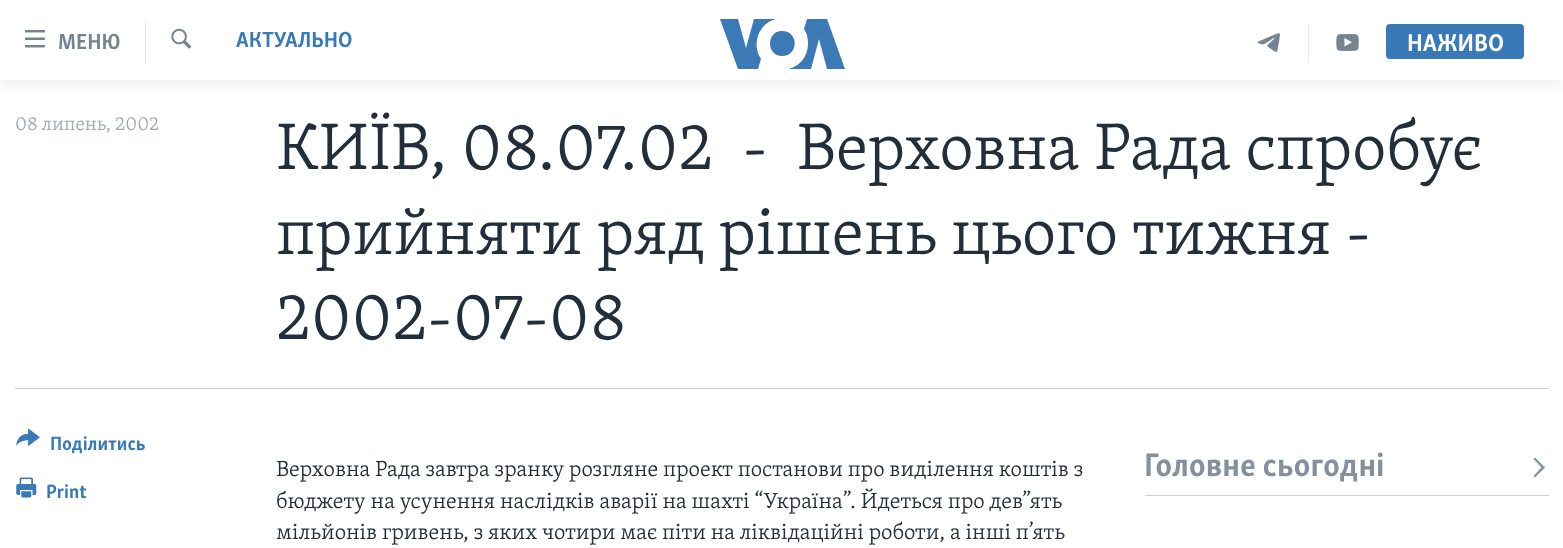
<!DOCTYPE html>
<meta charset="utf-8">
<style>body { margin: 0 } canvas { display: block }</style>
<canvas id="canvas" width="1563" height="548"></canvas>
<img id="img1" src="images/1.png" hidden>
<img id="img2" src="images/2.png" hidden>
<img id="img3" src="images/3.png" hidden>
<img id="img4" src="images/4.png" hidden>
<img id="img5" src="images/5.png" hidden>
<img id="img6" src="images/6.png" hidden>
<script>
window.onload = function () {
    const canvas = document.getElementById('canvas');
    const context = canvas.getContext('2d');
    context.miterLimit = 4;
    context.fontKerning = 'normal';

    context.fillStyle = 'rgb(255, 255, 255)';
    context.fillRect(0, 0, 1563, 548);
    context.save();
    context.beginPath();
    context.rect(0, 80, 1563, 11);
    context.clip();
    context.fillStyle = 'rgba(0, 0, 0, 0.1)';
    context.filter = 'blur(12.5px)';
    context.beginPath();
    context.rect(0, 0, 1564, 80);
    context.fill();
    context.filter = 'none';
    context.restore();
    context.drawImage(document.getElementById('img1'), 25, 30, 20, 18);
    context.fillStyle = 'rgb(235, 235, 235)';
    context.fillRect(145, 21, 1, 44);
    context.drawImage(document.getElementById('img2'), 171, 28, 21, 21);
    context.fillStyle = 'rgb(59, 121, 183)';
    context.beginPath();
    context.moveTo(761, 59);
    context.lineTo(758, 69);
    context.lineTo(738, 69);
    context.lineTo(720, 19);
    context.lineTo(738, 19);
    context.lineTo(746, 48);
    context.lineTo(754, 19);
    context.lineTo(776, 19);
    context.bezierCurveTo(759, 23, 751, 44, 761, 59);
    context.closePath();
    context.moveTo(782, 31);
    context.bezierCurveTo(766, 31, 766, 56, 782, 56);
    context.bezierCurveTo(799, 56, 799, 31, 782, 31);
    context.closePath();
    context.moveTo(808, 44);
    context.bezierCurveTo(808, 56, 800, 66, 789, 69);
    context.lineTo(811, 69);
    context.lineTo(819, 39);
    context.lineTo(827, 69);
    context.lineTo(845, 69);
    context.lineTo(827, 19);
    context.lineTo(807, 19);
    context.lineTo(804, 29);
    context.bezierCurveTo(807, 33, 808, 38, 808, 44);
    context.closePath();
    context.fill();
    context.fillStyle = 'rgb(235, 235, 235)';
    context.fillRect(1308, 24, 1, 39);
    context.drawImage(document.getElementById('img3'), 1257, 33, 23, 19);
    context.drawImage(document.getElementById('img4'), 1336, 34, 23, 17);
    context.fillStyle = 'rgb(58, 121, 183)';
    context.beginPath();
    context.roundRect(1386, 24, 138, 35, 4);
    context.fill();
    context.fillStyle = 'rgb(203, 209, 214)';
    context.fillRect(15, 388, 1534, 1);
    context.drawImage(document.getElementById('img5'), 16, 428, 24, 18);
    context.drawImage(document.getElementById('img6'), 16, 477, 21, 21);
    context.fillRect(1145, 495, 404, 1);
    context.fillStyle = 'rgb(132, 145, 157)';
    context.beginPath();
    context.moveTo(1535, 477.5);
    context.lineTo(1545, 467.5);
    context.lineTo(1535, 457.5);
    context.lineTo(1533.5, 459);
    context.lineTo(1541.5, 467.5);
    context.lineTo(1533.5, 476);
    context.closePath();
    context.fill();
    context.font = 'bold 22.5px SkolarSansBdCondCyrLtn';
    context.fillStyle = 'rgb(118, 132, 146)';
    context.fillText('МЕНЮ', 58, 49);
    context.fillStyle = 'rgb(58, 121, 183)';
    context.fillText('АКТУАЛЬНО', 236, 47);
    context.font = 'bold 25px SkolarSansBdCondCyrLtn';
    context.fillStyle = 'rgb(255, 255, 255)';
    context.fillText('НАЖИВО', 1407, 51);
    context.font = '300 19.75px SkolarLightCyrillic';
    context.fillStyle = 'rgb(161, 170, 180)';
    context.fillText('08 липень, 2002', 15, 130);
    context.font = '300 67.5px SkolarLightCyrillic';
    context.fillStyle = 'rgb(34, 47, 58)';
    context.fillText('КИЇВ, 08.07.02  -  Верховна Рада спробує', 276, 169);
    context.fillText('прийняти ряд рішень цього тижня -', 276, 254);
    context.fillText('2002-07-08', 276, 339);
    context.font = 'bold 19.75px SkolarSansBdCondCyrLtn';
    context.fillStyle = 'rgb(58, 121, 183)';
    context.fillText('Поділитись', 50, 450);
    context.fillText('Print', 46, 498);
    context.font = '300 22.5px SkolarLightCyrillic';
    context.fillStyle = 'rgb(34, 47, 58)';
    context.fillText('Верховна Рада завтра зранку розгляне проект постанови про виділення коштів з', 276, 476);
    context.fillText('бюджету на усунення наслідків аварії на шахті “Україна”. Йдеться про дев”ять', 276, 508);
    context.fillText('мільйонів гривень, з яких чотири має піти на ліквідаційні роботи, а інші п’ять', 276, 539);
    context.font = 'bold 33.75px SkolarSansBdCondCyrLtn';
    context.fillStyle = 'rgb(132, 145, 157)';
    context.fillText('Головне сьогодні', 1144, 476);
};
</script>
